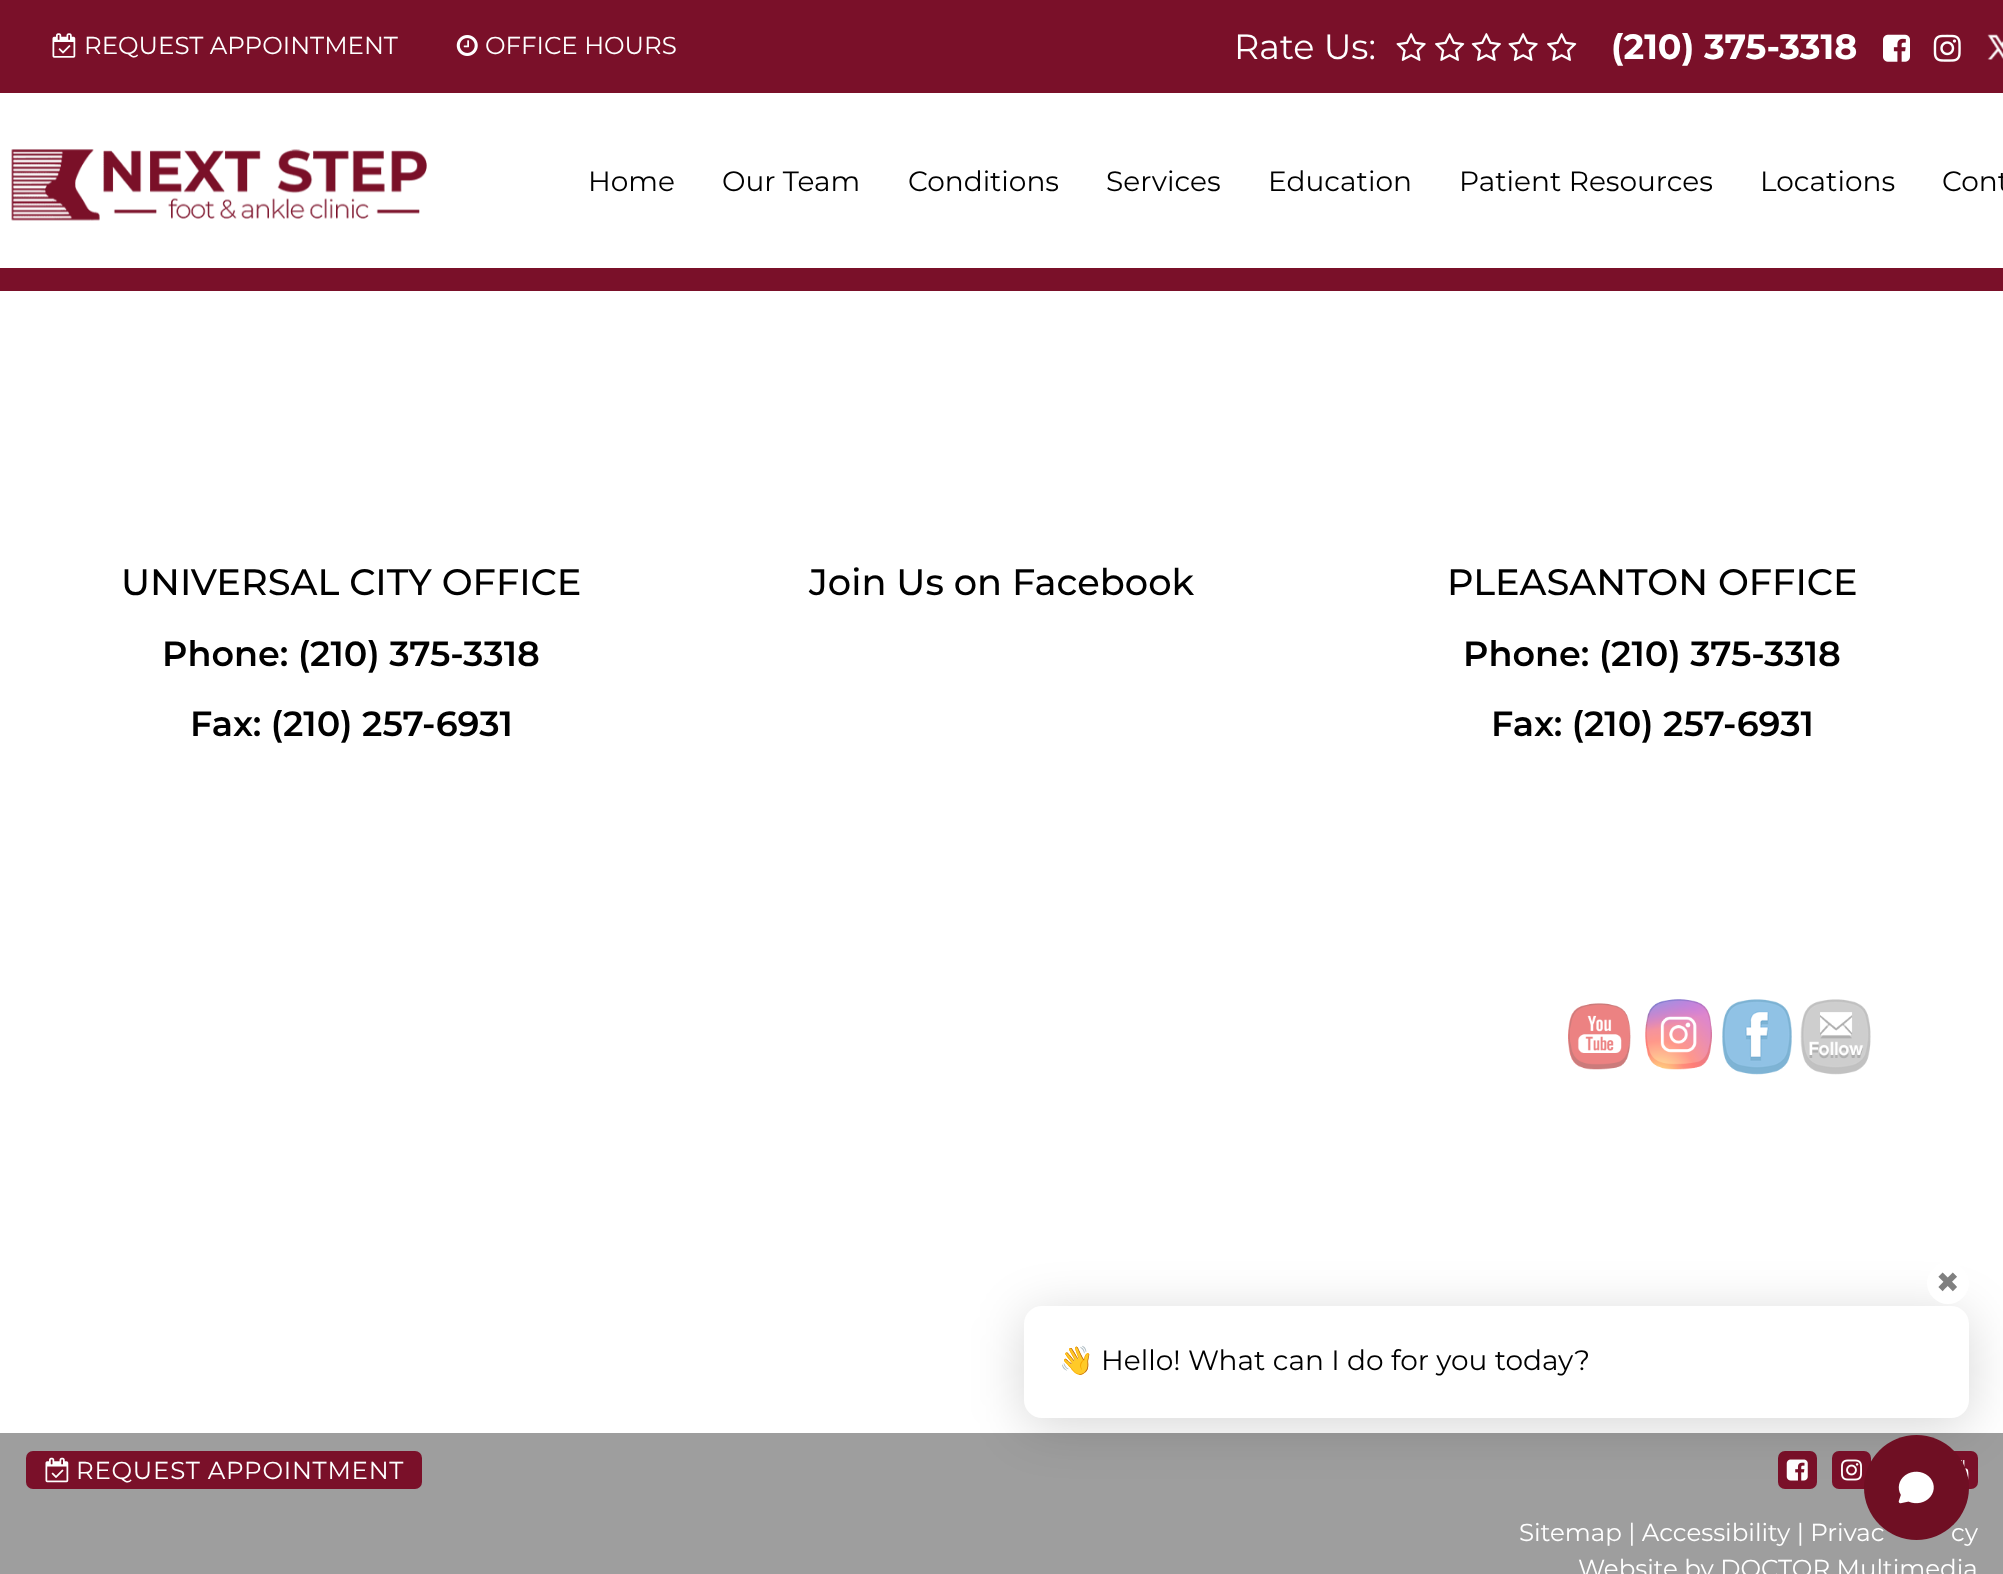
<!DOCTYPE html>
<meta charset="utf-8">
<style>body { margin: 0 } canvas { display: block }</style>
<canvas id="canvas" width="2003" height="1574"></canvas>
<img id="img1" src="images/1.png" hidden>
<img id="img2" src="images/2.png" hidden>
<img id="img3" src="images/3.png" hidden>
<img id="img4" src="images/4.png" hidden>
<img id="img5" src="images/5.png" hidden>
<img id="img6" src="images/6.png" hidden>
<img id="img7" src="images/7.png" hidden>
<img id="img8" src="images/8.png" hidden>
<img id="img9" src="images/9.png" hidden>
<img id="img10" src="images/10.png" hidden>
<img id="img11" src="images/11.png" hidden>
<img id="img12" src="images/12.png" hidden>
<img id="img13" src="images/13.png" hidden>
<img id="img14" src="images/14.png" hidden>
<img id="img15" src="images/15.png" hidden>
<img id="img16" src="images/16.png" hidden>
<img id="img17" src="images/17.png" hidden>
<img id="img18" src="images/18.png" hidden>
<script>
window.onload = function () {
    const canvas = document.getElementById('canvas');
    const context = canvas.getContext('2d');
    context.miterLimit = 4;
    context.fontKerning = 'normal';

    context.fillStyle = 'rgb(255, 255, 255)';
    context.fillRect(0, 0, 2003, 1574);
    context.fillStyle = 'rgb(122, 16, 41)';
    context.fillRect(0, 0, 2003, 93);
    context.drawImage(document.getElementById('img1'), 52, 33, 24, 25);
    context.drawImage(document.getElementById('img2'), 456, 35, 22, 21);
    context.drawImage(document.getElementById('img3'), 1396, 33, 30, 28);
    context.drawImage(document.getElementById('img4'), 1435, 33, 30, 28);
    context.drawImage(document.getElementById('img5'), 1471, 33, 30, 28);
    context.drawImage(document.getElementById('img3'), 1508, 33, 30, 28);
    context.drawImage(document.getElementById('img4'), 1547, 33, 30, 28);
    context.drawImage(document.getElementById('img6'), 1883, 34, 27, 28);
    context.drawImage(document.getElementById('img7'), 1933, 34, 28, 28);
    context.drawImage(document.getElementById('img8'), 1987, 34, 16, 26);
    context.drawImage(document.getElementById('img9'), 11, 149, 416, 72);
    context.fillRect(0, 268, 2003, 23);
    context.fillStyle = 'rgb(158, 158, 158)';
    context.fillRect(0, 1433, 2003, 141);
    context.fillStyle = 'rgb(122, 16, 41)';
    context.beginPath();
    context.roundRect(26, 1451, 396, 38, 7);
    context.fill();
    context.drawImage(document.getElementById('img10'), 45, 1457, 24, 26);
    context.beginPath();
    context.roundRect(1778, 1451, 39, 38, 7);
    context.fill();
    context.drawImage(document.getElementById('img11'), 1786, 1459, 22, 22);
    context.beginPath();
    context.roundRect(1832, 1451, 39, 38, 7);
    context.fill();
    context.drawImage(document.getElementById('img12'), 1841, 1459, 21, 22);
    context.beginPath();
    context.roundRect(1939, 1451, 39, 38, 7);
    context.fill();
    context.drawImage(document.getElementById('img13'), 1961, 1460, 8, 20);
    context.drawImage(document.getElementById('img14'), 1568, 1003, 63, 67);
    context.drawImage(document.getElementById('img15'), 1645, 999, 67, 71);
    context.drawImage(document.getElementById('img16'), 1722, 999, 70, 76);
    context.drawImage(document.getElementById('img17'), 1800, 999, 71, 76);
    context.fillStyle = 'rgba(0, 0, 0, 0.16)';
    context.filter = 'blur(26px)';
    context.beginPath();
    context.roundRect(1024, 1314, 945, 112, 18);
    context.fill();
    context.filter = 'none';
    context.fillStyle = 'rgb(255, 255, 255)';
    context.beginPath();
    context.roundRect(1024, 1306, 945, 112, 18);
    context.fill();
    context.beginPath();
    context.arc(1948, 1283, 21, 0, 2 * Math.PI);
    context.fill();
    context.font = '24.5px Montserrat';
    context.fillText('REQUEST APPOINTMENT', 84, 54);
    context.fillText('OFFICE HOURS', 485, 54);
    context.font = '35px Montserrat';
    context.fillText('Rate Us:', 1234, 59);
    context.font = 'bold 35px Montserrat';
    context.fillText('(210) 375-3318', 1611, 59);
    context.font = '28px Montserrat';
    context.fillStyle = 'rgb(0, 0, 0)';
    context.fillText('Home', 588, 191);
    context.fillText('Our Team', 722, 191);
    context.fillText('Conditions', 908, 191);
    context.fillText('Services', 1106, 191);
    context.fillText('Education', 1268, 191);
    context.fillText('Patient Resources', 1459, 191);
    context.fillText('Locations', 1760, 191);
    context.fillText('Cont', 1942, 191);
    context.font = '500 36.75px Montserrat';
    context.fillText('UNIVERSAL CITY OFFICE', 121, 595);
    context.font = '600 35px Montserrat';
    context.fillText('Phone: (210) 375-3318', 162, 666);
    context.fillText('Fax: (210) 257-6931', 190, 736);
    context.font = '500 36.75px Montserrat';
    context.fillText('Join Us on Facebook', 809, 595);
    context.fillText('PLEASANTON OFFICE', 1447, 595);
    context.font = '600 35px Montserrat';
    context.fillText('Phone: (210) 375-3318', 1463, 666);
    context.fillText('Fax: (210) 257-6931', 1491, 736);
    context.letterSpacing = '0.75px';
    context.font = '24.5px Montserrat';
    context.fillStyle = 'rgb(255, 255, 255)';
    context.fillText('REQUEST APPOINTMENT', 76, 1479);
    context.letterSpacing = '0px';
    context.fillText('Sitemap | Accessibility | Privac', 1519, 1541);
    context.fillText('cy', 1951, 1541);
    context.fillText('Website by DOCTOR Multimedia', 1578, 1577);
    context.font = '28px DejaVu Sans';
    context.fillStyle = 'rgb(128, 128, 128)';
    context.fillText('✖', 1936, 1292);
    context.font = '28px Noto Color Emoji';
    context.fillStyle = 'rgb(0, 0, 0)';
    context.fillText('👋', 1059, 1370);
    context.font = '28px Montserrat';
    context.fillText('Hello! What can I do for you today?', 1101, 1370);
    context.fillStyle = 'rgb(111, 15, 35)';
    context.beginPath();
    context.arc(1916.5, 1487.5, 52.5, 0, 2 * Math.PI);
    context.fill();
    context.drawImage(document.getElementById('img18'), 1898, 1471, 36, 33);
};
</script>
